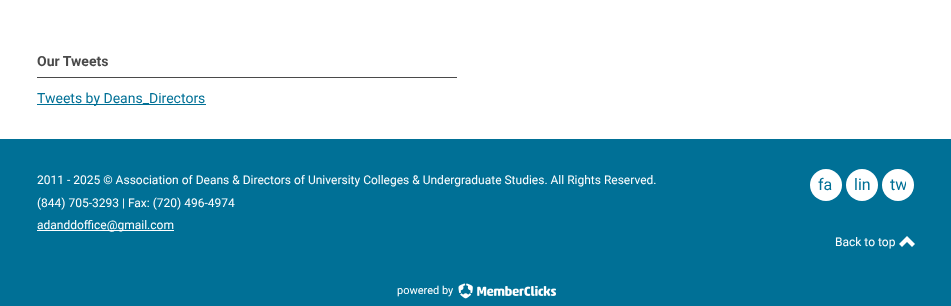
<!DOCTYPE html>
<meta charset="utf-8">
<style>body { margin: 0 } canvas { display: block }</style>
<canvas id="canvas" width="951" height="306"></canvas>
<img id="img1" src="images/1.png" hidden>
<img id="img2" src="images/2.png" hidden>
<img id="img3" src="images/3.png" hidden>
<script>
window.onload = function () {
    const canvas = document.getElementById('canvas');
    const context = canvas.getContext('2d');
    context.miterLimit = 4;
    context.fontKerning = 'normal';

    context.fillStyle = 'rgb(255, 255, 255)';
    context.fillRect(0, 0, 951, 306);
    context.fillStyle = 'rgb(74, 74, 74)';
    context.fillRect(37, 77, 420, 1);
    context.fillStyle = 'rgb(0, 112, 150)';
    context.fillRect(37, 104, 169, 1);
    context.fillRect(0, 139, 951, 167);
    context.fillStyle = 'rgb(255, 255, 255)';
    context.fillRect(37, 230, 137, 1);
    context.beginPath();
    context.arc(826, 185, 16, 0, 2 * Math.PI);
    context.fill();
    context.beginPath();
    context.arc(862, 185, 16, 0, 2 * Math.PI);
    context.fill();
    context.beginPath();
    context.arc(898, 185, 16, 0, 2 * Math.PI);
    context.fill();
    context.drawImage(document.getElementById('img1'), 899, 236, 16, 11);
    context.drawImage(document.getElementById('img2'), 458, 283, 15, 16);
    context.drawImage(document.getElementById('img3'), 477, 285, 79, 11);
    context.font = 'bold 14px Roboto';
    context.fillStyle = 'rgb(74, 74, 74)';
    context.fillText('Our Tweets', 37, 66);
    context.font = '14px Roboto';
    context.fillStyle = 'rgb(0, 112, 150)';
    context.fillText('Tweets by Deans_Directors', 37, 103);
    context.font = '12px Roboto';
    context.fillStyle = 'rgb(255, 255, 255)';
    context.fillText('2011 - 2025 © Association of Deans & Directors of University Colleges & Undergraduate Studies. All Rights Reserved.', 37, 184);
    context.fillText('(844) 705-3293 | Fax: (720) 496-4974', 37, 207);
    context.fillText('adanddoffice@gmail.com', 37, 229);
    context.font = '16px Roboto';
    context.fillStyle = 'rgb(0, 112, 150)';
    context.fillText('fa', 818, 190);
    context.fillText('lin', 854, 190);
    context.save();
    context.beginPath();
    context.rect(890, 177, 16, 16);
    context.clip();
    context.fillText('tw', 890, 190);
    context.restore();
    context.font = '12px Roboto';
    context.fillStyle = 'rgb(255, 255, 255)';
    context.fillText('Back to top', 835, 246);
    context.font = '11px Roboto';
    context.fillText('powered by', 397, 294);
};
</script>
